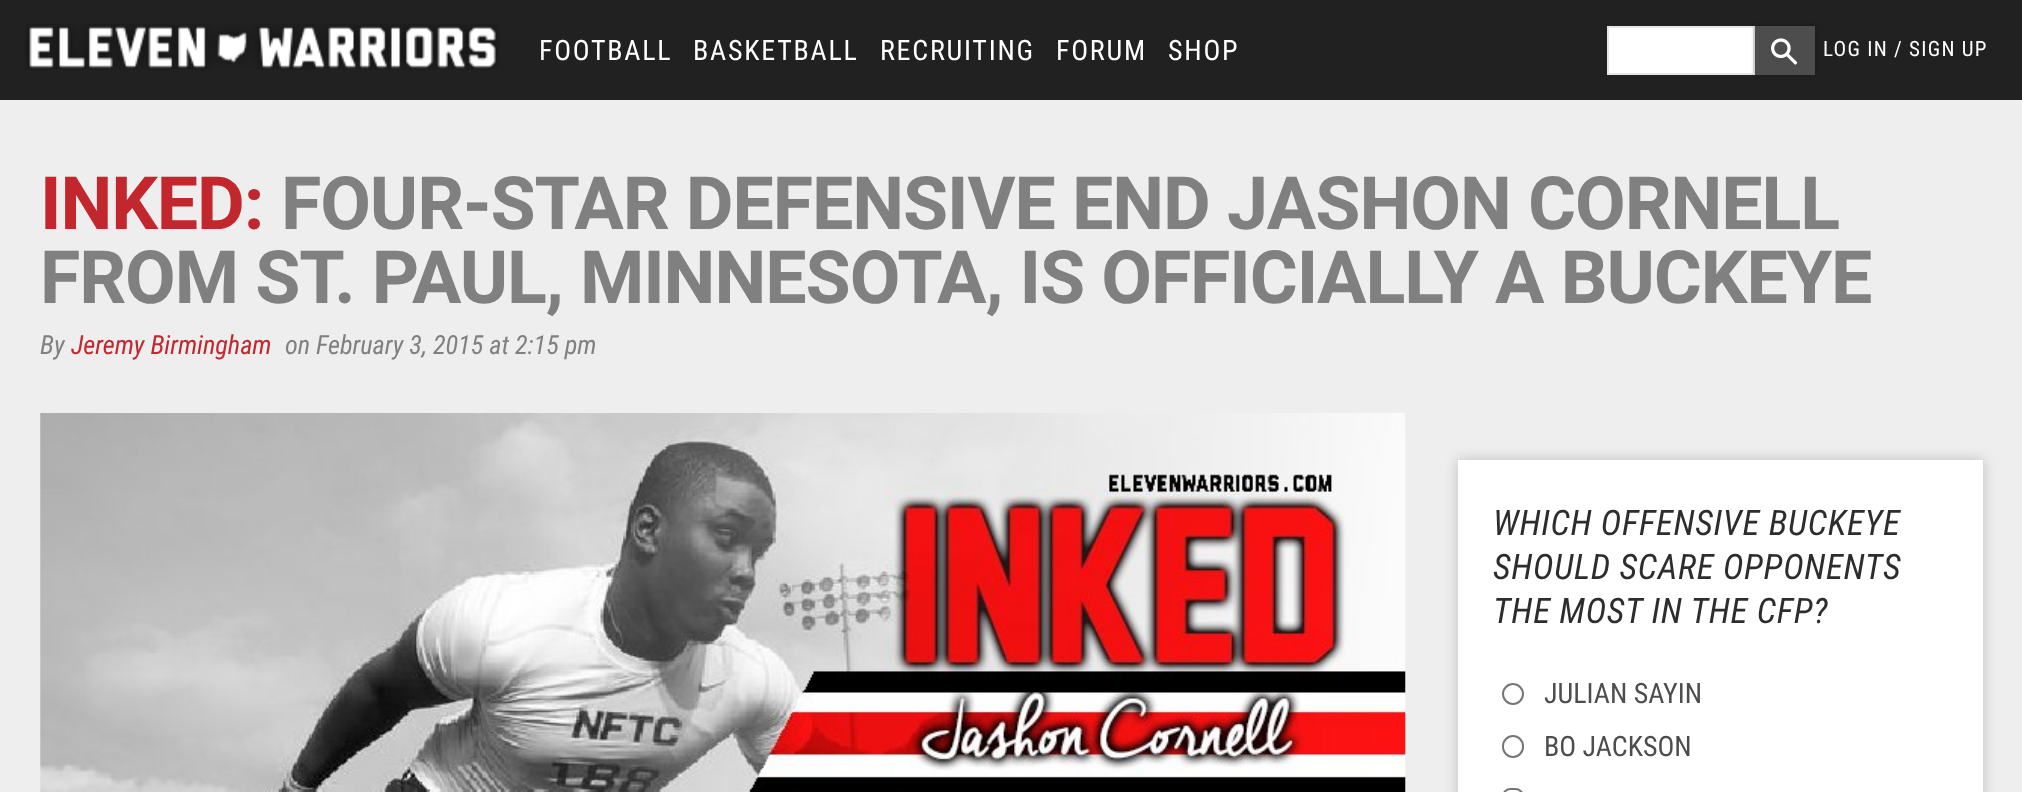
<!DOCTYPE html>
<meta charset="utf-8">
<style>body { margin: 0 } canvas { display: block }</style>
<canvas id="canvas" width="2022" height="792"></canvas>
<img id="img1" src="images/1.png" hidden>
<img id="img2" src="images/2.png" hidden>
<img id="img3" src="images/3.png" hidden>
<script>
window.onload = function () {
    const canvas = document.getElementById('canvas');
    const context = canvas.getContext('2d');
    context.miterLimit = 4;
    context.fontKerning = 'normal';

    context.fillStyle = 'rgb(238, 238, 238)';
    context.fillRect(0, 0, 2022, 792);
    context.fillStyle = 'rgb(33, 33, 33)';
    context.fillRect(0, 0, 2022, 100);
    context.drawImage(document.getElementById('img1'), 25, 24, 474, 46);
    context.fillStyle = 'rgb(255, 255, 255)';
    context.beginPath();
    context.rect(1608, 27, 146, 47);
    context.fill();
    context.strokeStyle = 'rgb(230, 230, 230)';
    context.lineWidth = 2;
    context.stroke();
    context.fillStyle = 'rgba(0, 0, 0, 0.3)';
    context.filter = 'blur(2px)';
    context.beginPath();
    context.rect(1755, 26, 60, 49);
    context.fill();
    context.filter = 'none';
    context.fillStyle = 'rgb(77, 77, 77)';
    context.fillRect(1755, 26, 60, 49);
    context.drawImage(document.getElementById('img2'), 1771, 38, 27, 27);
    context.drawImage(document.getElementById('img3'), 40, 413, 1366, 379);
    context.fillStyle = 'rgba(0, 0, 0, 0.2)';
    context.filter = 'blur(7px)';
    context.beginPath();
    context.rect(1458, 460, 525, 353);
    context.fill();
    context.filter = 'none';
    context.fillStyle = 'rgb(255, 255, 255)';
    context.fillRect(1458, 460, 525, 332);
    context.beginPath();
    context.arc(1513, 694, 10, 0, 2 * Math.PI);
    context.strokeStyle = 'rgb(118, 118, 118)';
    context.stroke();
    context.beginPath();
    context.roundRect(1503, 736, 20, 21, 10);
    context.stroke();
    context.beginPath();
    context.roundRect(1503, 789, 20, 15, 10);
    context.stroke();
    context.letterSpacing = '1.75px';
    context.font = '28px Roboto Condensed';
    context.fillText('FOOTBALL', 539, 60);
    context.fillText('BASKETBALL', 693, 60);
    context.fillText('RECRUITING', 880, 60);
    context.fillText('FORUM', 1056, 60);
    context.fillText('SHOP', 1168, 60);
    context.letterSpacing = '1.25px';
    context.font = '21px Roboto Condensed';
    context.fillText('LOG IN / SIGN UP', 1823, 56);
    context.letterSpacing = '-1.1px';
    context.font = 'bold 73.5px Heebo';
    context.fillStyle = 'rgb(193, 39, 45)';
    context.fillText('INKED:', 40, 229);
    context.fillStyle = 'rgb(128, 128, 128)';
    context.fillText('FOUR-STAR DEFENSIVE END JASHON CORNELL', 281, 229);
    context.fillText('FROM ST. PAUL, MINNESOTA, IS OFFICIALLY A BUCKEYE', 40, 303);
    context.letterSpacing = '0px';
    context.font = 'italic 26.25px Roboto Condensed';
    context.fillText('By', 40, 354);
    context.fillStyle = 'rgb(193, 39, 45)';
    context.fillText('Jeremy Birmingham', 71, 354);
    context.fillStyle = 'rgb(128, 128, 128)';
    context.fillText('on February 3, 2015 at 2:15 pm', 285, 354);
    context.letterSpacing = '0.7px';
    context.font = 'italic 35px Roboto Condensed';
    context.fillStyle = 'rgb(45, 45, 45)';
    context.fillText('WHICH OFFENSIVE BUCKEYE', 1493, 535);
    context.fillText('SHOULD SCARE OPPONENTS', 1493, 579);
    context.fillText('THE MOST IN THE CFP?', 1493, 623);
    context.letterSpacing = '0px';
    context.font = '28px Roboto Condensed';
    context.fillStyle = 'rgb(77, 77, 77)';
    context.fillText('JULIAN SAYIN', 1544, 703);
    context.fillText('BO JACKSON', 1544, 756);
};
</script>
